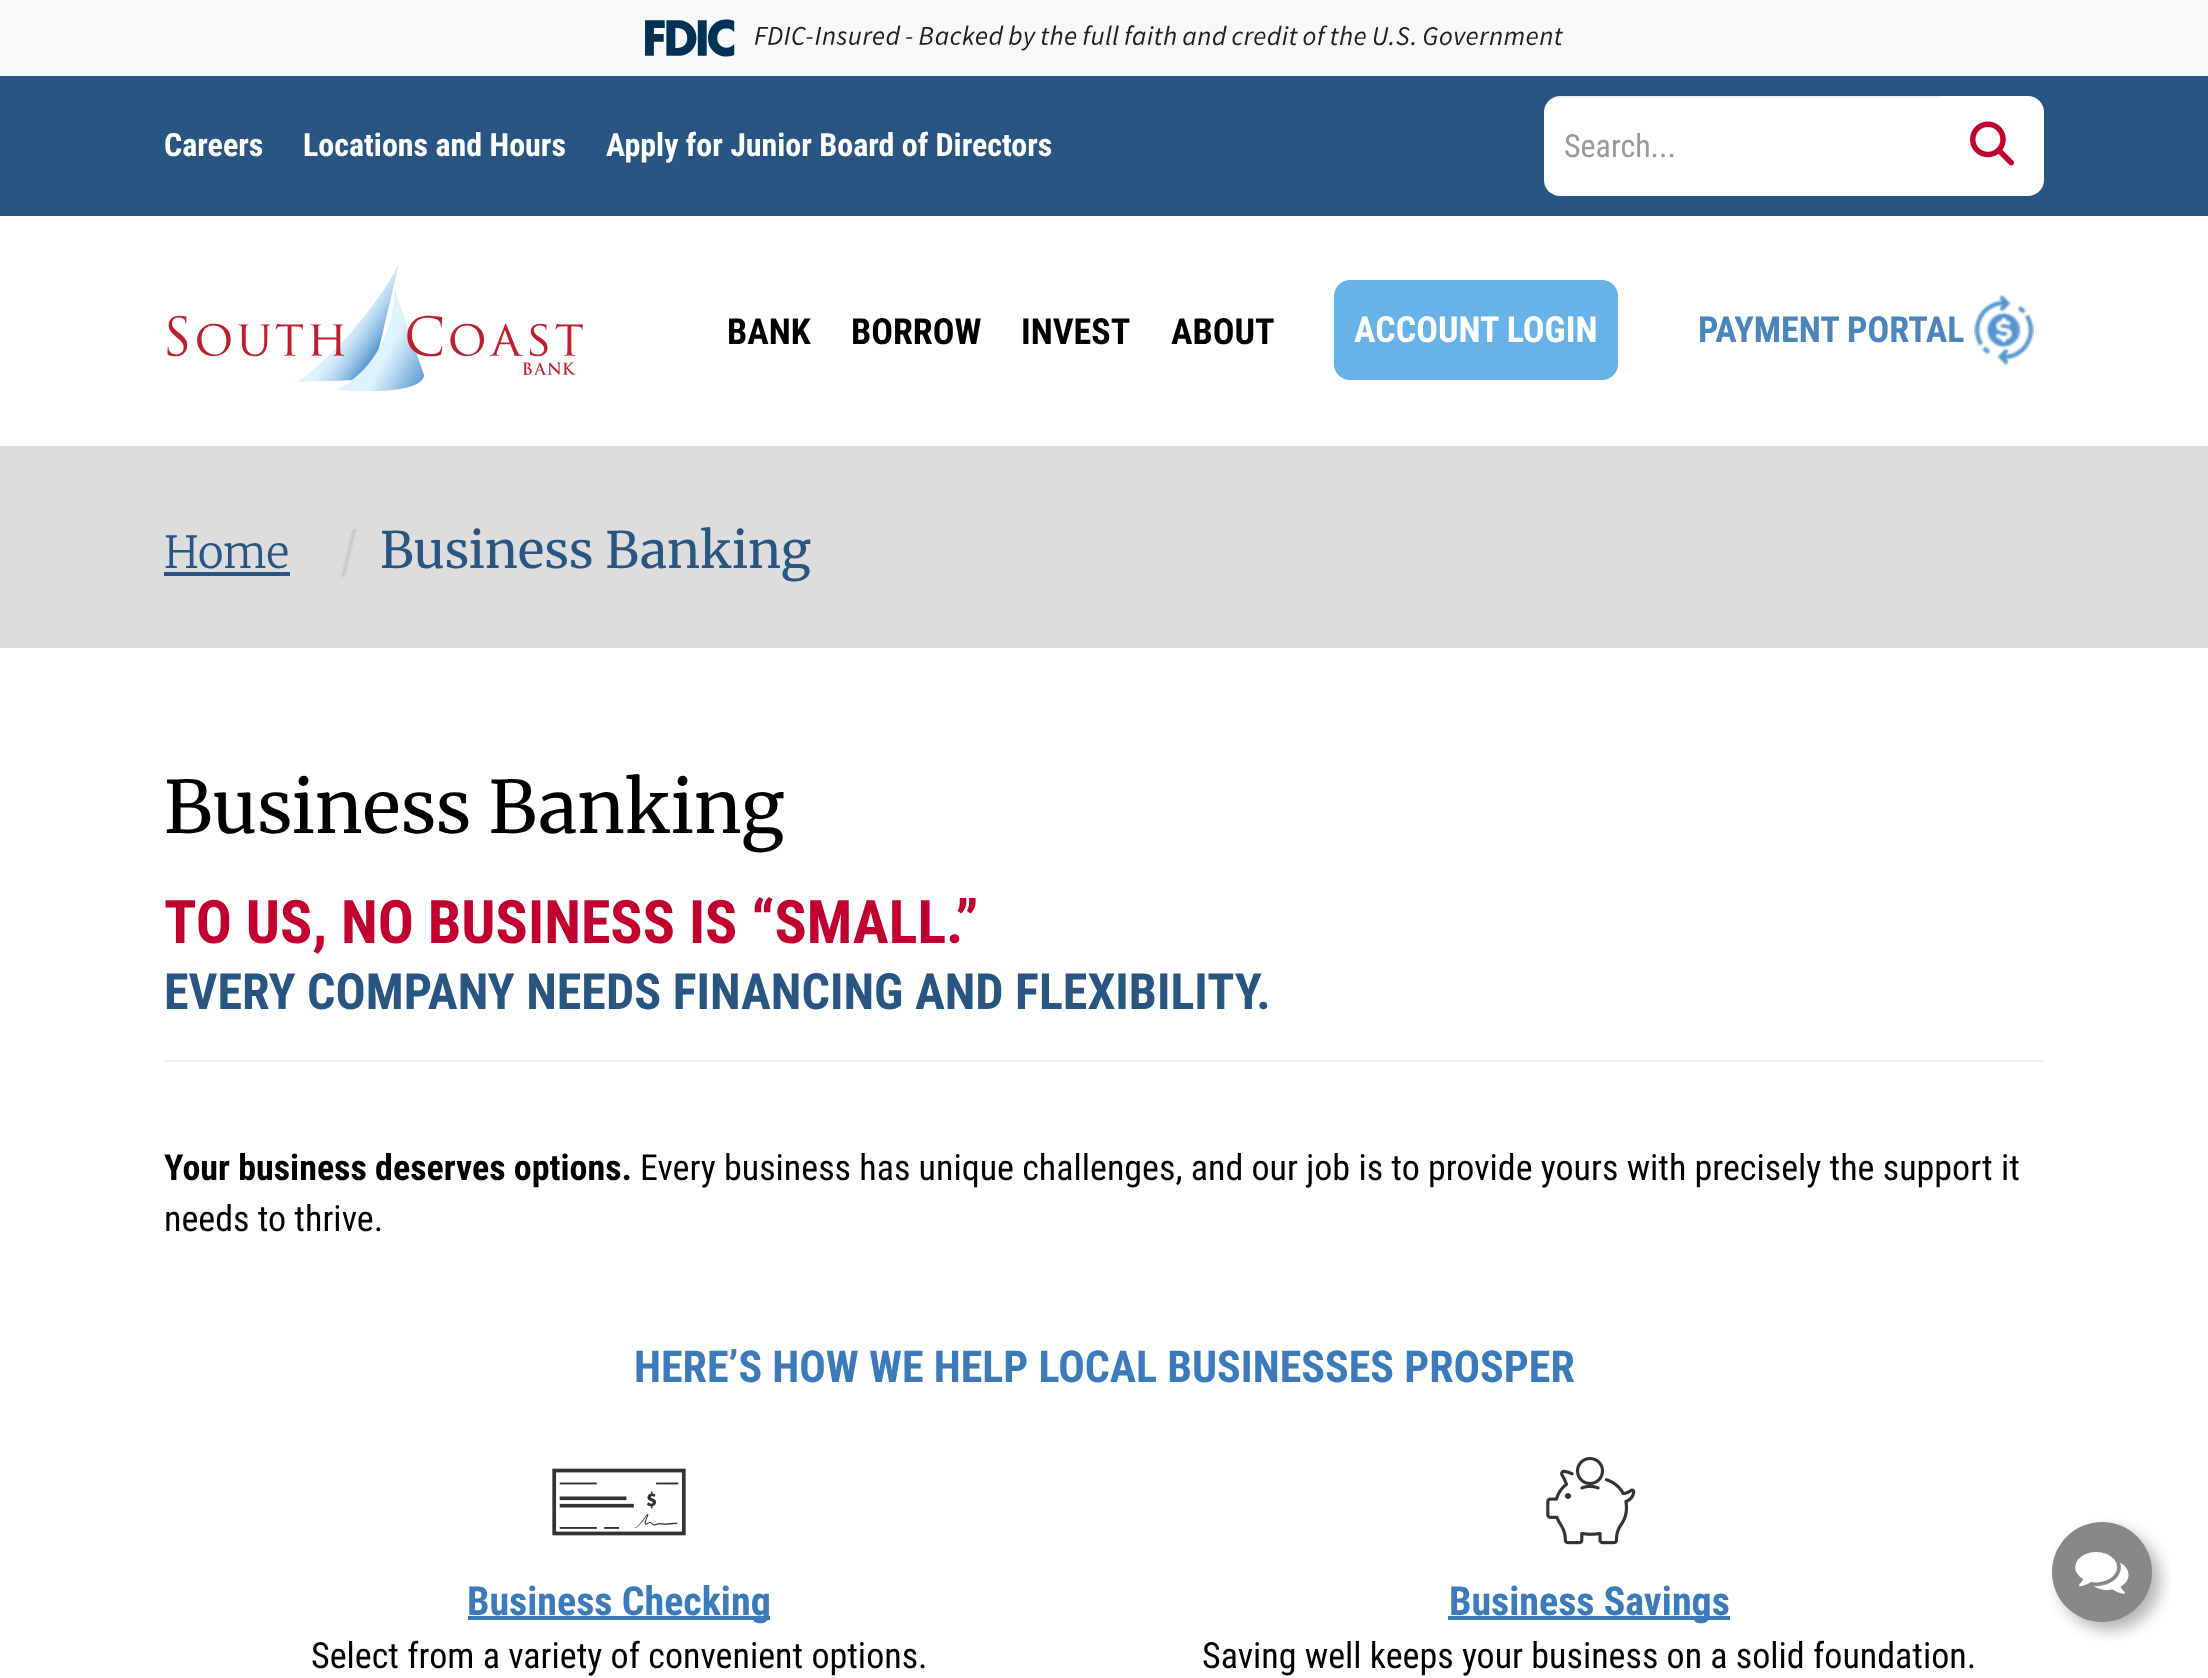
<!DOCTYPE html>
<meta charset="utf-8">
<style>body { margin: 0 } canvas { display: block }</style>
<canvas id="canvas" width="2208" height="1678"></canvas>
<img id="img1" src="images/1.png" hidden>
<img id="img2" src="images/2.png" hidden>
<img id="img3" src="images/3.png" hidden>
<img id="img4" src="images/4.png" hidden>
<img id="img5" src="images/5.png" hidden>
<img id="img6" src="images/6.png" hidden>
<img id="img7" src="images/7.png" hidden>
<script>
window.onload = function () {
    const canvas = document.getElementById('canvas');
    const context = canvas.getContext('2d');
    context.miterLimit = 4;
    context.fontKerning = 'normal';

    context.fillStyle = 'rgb(255, 255, 255)';
    context.fillRect(0, 0, 2208, 1678);
    context.fillStyle = 'rgb(41, 85, 130)';
    context.fillRect(0, 76, 2208, 140);
    context.fillStyle = 'rgb(248, 248, 248)';
    context.fillRect(0, 0, 2208, 76);
    context.drawImage(document.getElementById('img1'), 645, 19, 918, 38);
    context.fillStyle = 'rgb(255, 255, 255)';
    context.beginPath();
    context.roundRect(1544, 96, 398, 100, [16, 0, 0, 16]);
    context.fill();
    context.fillStyle = 'rgba(0, 0, 0, 0.07)';
    context.beginPath();
    context.moveTo(1560, 98);
    context.lineTo(1942, 98);
    context.lineTo(1942, 96);
    context.lineTo(1560, 96);
    context.bezierCurveTo(1551, 96, 1544, 103, 1544, 112);
    context.lineTo(1544, 114);
    context.bezierCurveTo(1544, 105, 1551, 98, 1560, 98);
    context.closePath();
    context.fill();
    context.fillStyle = 'rgb(255, 255, 255)';
    context.beginPath();
    context.roundRect(1940, 96, 104, 100, [0, 16, 16, 0]);
    context.fill();
    context.drawImage(document.getElementById('img2'), 1970, 121, 44, 45);
    context.drawImage(document.getElementById('img3'), 167, 265, 416, 127);
    context.fillStyle = 'rgb(103, 178, 231)';
    context.beginPath();
    context.roundRect(1334, 280, 284, 100, 16);
    context.fill();
    context.drawImage(document.getElementById('img4'), 1974, 294, 60, 72);
    context.fillStyle = 'rgb(221, 221, 221)';
    context.fillRect(0, 446, 2208, 202);
    context.fillStyle = 'rgb(41, 85, 130)';
    context.fillRect(164, 572, 126, 4);
    context.fillStyle = 'rgb(238, 238, 238)';
    context.fillRect(164, 1060, 1880, 2);
    context.drawImage(document.getElementById('img5'), 552, 1468, 134, 68);
    context.fillStyle = 'rgb(59, 123, 188)';
    context.fillRect(468, 1616, 302, 4);
    context.drawImage(document.getElementById('img6'), 1546, 1457, 90, 88);
    context.fillRect(1448, 1616, 282, 4);
    context.drawImage(document.getElementById('img7'), 2049, 1519, 122, 122);
    context.font = 'bold 32px Roboto Condensed';
    context.fillStyle = 'rgb(255, 255, 255)';
    context.fillText('Careers', 164, 156);
    context.fillText('Locations and Hours', 303, 156);
    context.fillText('Apply for Junior Board of Directors', 606, 156);
    context.font = '32px Roboto Condensed';
    context.fillStyle = 'rgb(153, 153, 153)';
    context.fillText('Search...', 1564, 157);
    context.font = 'bold 36px Roboto Condensed';
    context.fillStyle = 'rgb(0, 0, 0)';
    context.fillText('BANK', 727, 344);
    context.fillText('BORROW', 851, 344);
    context.fillText('INVEST', 1021, 344);
    context.fillText('ABOUT', 1171, 344);
    context.fillStyle = 'rgb(255, 255, 255)';
    context.fillText('ACCOUNT LOGIN', 1354, 342);
    context.fillStyle = 'rgb(75, 133, 189)';
    context.fillText('PAYMENT PORTAL', 1698, 342);
    context.font = '300 44px Merriweather';
    context.fillStyle = 'rgb(41, 85, 130)';
    context.fillText('Home', 164, 568);
    context.font = '50px Merriweather';
    context.fillStyle = 'rgb(204, 204, 204)';
    context.fillText('/', 339, 568);
    context.fillStyle = 'rgb(41, 85, 130)';
    context.fillText('Business Banking', 380, 568);
    context.font = '72px Merriweather';
    context.fillStyle = 'rgb(0, 0, 0)';
    context.fillText('Business Banking', 164, 833);
    context.font = 'bold 60px Roboto Condensed';
    context.fillStyle = 'rgb(194, 0, 47)';
    context.fillText('TO US, NO BUSINESS IS “SMALL.”', 164, 943);
    context.font = 'bold 50px Roboto Condensed';
    context.fillStyle = 'rgb(41, 85, 130)';
    context.fillText('EVERY COMPANY NEEDS FINANCING AND FLEXIBILITY.', 164, 1009);
    context.font = 'bold 36px Roboto Condensed';
    context.fillStyle = 'rgb(0, 0, 0)';
    context.fillText('Your business deserves options.', 164, 1180);
    context.font = '36px Roboto Condensed';
    context.fillText('Every business has unique challenges, and our job is to provide yours with precisely the support it', 640, 1180);
    context.fillText('needs to thrive.', 164, 1231);
    context.font = 'bold 44px Roboto Condensed';
    context.fillStyle = 'rgb(59, 123, 188)';
    context.fillText('HERE’S HOW WE HELP LOCAL BUSINESSES PROSPER', 634, 1382);
    context.font = 'bold 40px Roboto Condensed';
    context.fillText('Business Checking', 467, 1615);
    context.font = '36px Roboto Condensed';
    context.fillStyle = 'rgb(0, 0, 0)';
    context.fillText('Select from a variety of convenient options.', 311, 1668);
    context.font = 'bold 40px Roboto Condensed';
    context.fillStyle = 'rgb(59, 123, 188)';
    context.fillText('Business Savings', 1449, 1615);
    context.font = '36px Roboto Condensed';
    context.fillStyle = 'rgb(0, 0, 0)';
    context.fillText('Saving well keeps your business on a solid foundation.', 1202, 1668);
};
</script>
